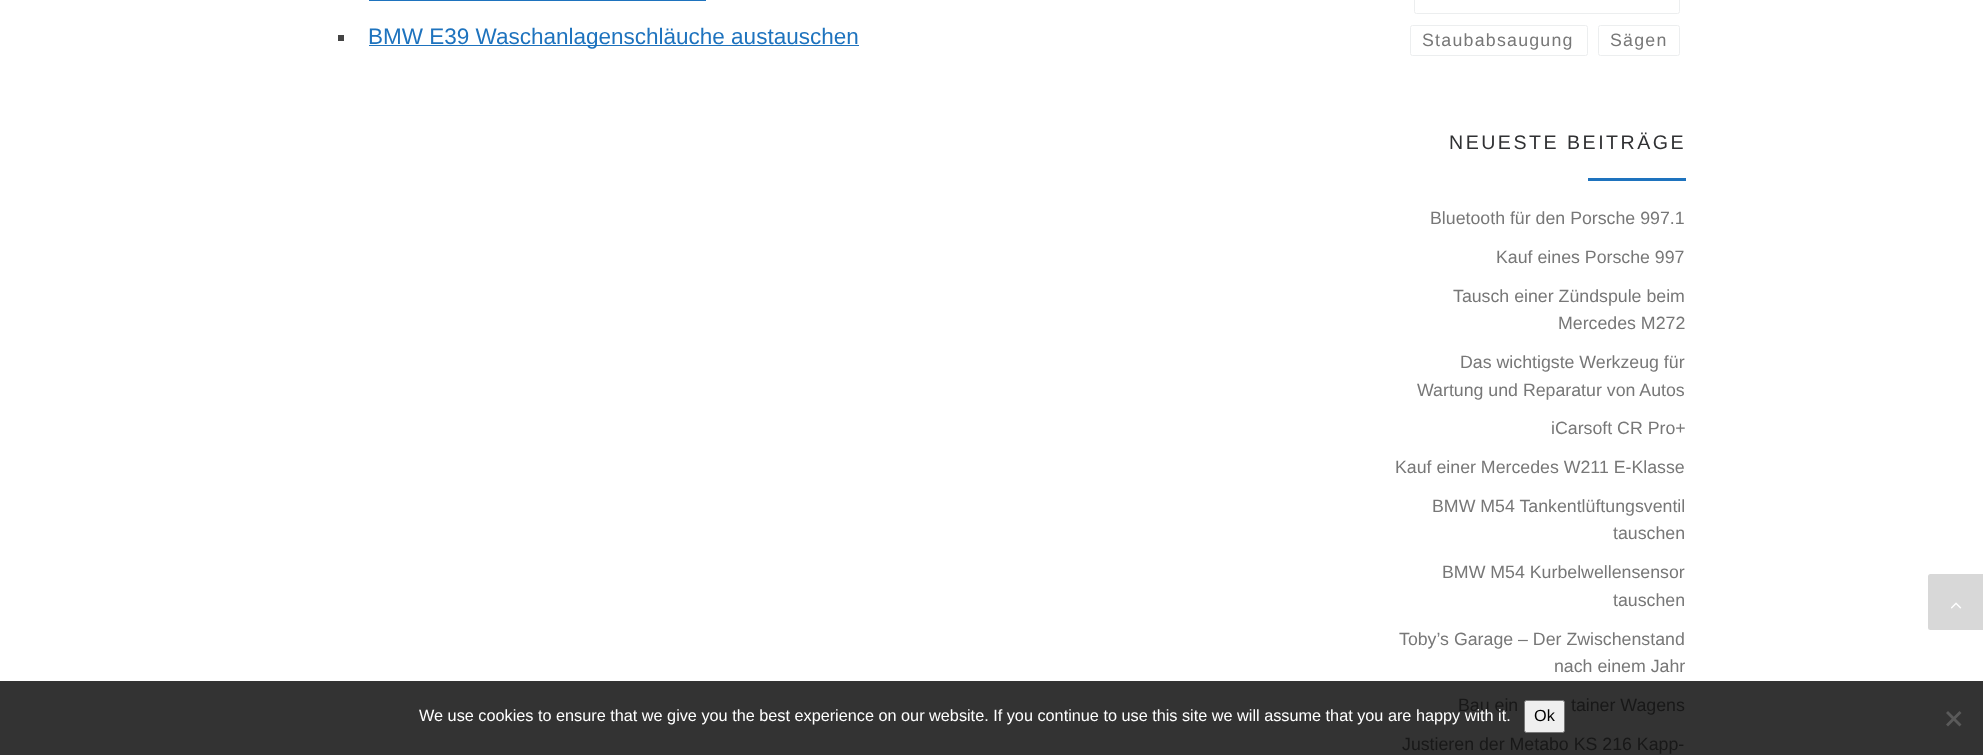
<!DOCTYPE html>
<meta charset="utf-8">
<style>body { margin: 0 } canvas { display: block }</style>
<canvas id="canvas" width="1983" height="755"></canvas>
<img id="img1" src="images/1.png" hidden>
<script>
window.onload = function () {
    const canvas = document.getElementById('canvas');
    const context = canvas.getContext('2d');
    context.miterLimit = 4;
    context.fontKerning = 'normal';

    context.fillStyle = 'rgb(255, 255, 255)';
    context.fillRect(0, 0, 1983, 755);
    context.fillStyle = 'rgb(51, 51, 51)';
    context.fillRect(0, 681, 1983, 74);
    context.fillStyle = 'rgb(30, 115, 190)';
    context.fillRect(369, 0, 337, 1);
    context.fillStyle = 'rgb(68, 68, 68)';
    context.fillRect(338, 35, 6, 6);
    context.fillStyle = 'rgb(30, 115, 190)';
    context.fillRect(369, 45, 490, 1);
    context.beginPath();
    context.roundRect(1414.5, -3.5, 265, 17, 2);
    context.strokeStyle = 'rgb(236, 238, 239)';
    context.stroke();
    context.beginPath();
    context.roundRect(1410.5, 25.5, 177, 30, 2);
    context.stroke();
    context.beginPath();
    context.roundRect(1598.5, 25.5, 81, 30, 2);
    context.stroke();
    context.fillRect(1588, 178, 98, 3);
    context.fillStyle = 'rgb(216, 216, 216)';
    context.beginPath();
    context.roundRect(1928, 574, 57, 56, 2.5);
    context.fill();
    context.drawImage(document.getElementById('img1'), 1951, 602, 11, 7);
    context.fillStyle = 'rgb(239, 239, 239)';
    context.beginPath();
    context.roundRect(1524.5, 700.5, 40, 32, 2);
    context.fill();
    context.strokeStyle = 'rgb(118, 118, 118)';
    context.stroke();
    context.fillStyle = 'rgb(90, 90, 90)';
    context.beginPath();
    context.moveTo(1959.5, 711);
    context.lineTo(1961.5, 713);
    context.lineTo(1948, 726.5);
    context.lineTo(1946, 724.5);
    context.closePath();
    context.fill();
    context.beginPath();
    context.moveTo(1946, 713);
    context.lineTo(1948, 711);
    context.lineTo(1961.5, 724.5);
    context.lineTo(1959.5, 726.5);
    context.closePath();
    context.fill();
    context.font = '22.5px Liberation Sans';
    context.fillStyle = 'rgb(30, 115, 190)';
    context.fillText('BMW E39 Waschanlagenschläuche austauschen', 368, 44);
    context.letterSpacing = '1.25px';
    context.font = '17.75px Liberation Sans';
    context.fillStyle = 'rgb(119, 119, 119)';
    context.fillText('Staubabsaugung', 1422, 46);
    context.fillText('Sägen', 1610, 46);
    context.letterSpacing = '2.5px';
    context.font = '19.6px Liberation Sans';
    context.fillStyle = 'rgb(48, 49, 51)';
    context.fillText('NEUESTE BEITRÄGE', 1449, 149);
    context.letterSpacing = '0px';
    context.font = '17.75px Liberation Sans';
    context.fillStyle = 'rgb(119, 119, 119)';
    context.fillText('Bluetooth für den Porsche 997.1', 1430, 224);
    context.fillText('Kauf eines Porsche 997', 1496, 263);
    context.fillText('Tausch einer Zündspule beim', 1453, 302);
    context.fillText('Mercedes M272', 1558, 329);
    context.fillText('Das wichtigste Werkzeug für', 1460, 368);
    context.fillText('Wartung und Reparatur von Autos', 1417, 396);
    context.fillText('iCarsoft CR Pro+', 1551, 434);
    context.fillText('Kauf einer Mercedes W211 E-Klasse', 1395, 473);
    context.fillText('BMW M54 Tankentlüftungsventil', 1432, 512);
    context.fillText('tauschen', 1613, 539);
    context.fillText('BMW M54 Kurbelwellensensor', 1442, 578);
    context.fillText('tauschen', 1613, 606);
    context.fillText('Toby’s Garage – Der Zwischenstand', 1399, 645);
    context.fillText('nach einem Jahr', 1554, 672);
    context.fillStyle = 'rgb(24, 24, 24)';
    context.fillText('Bau ein', 1458, 711);
    context.fillText('tainer Wagens', 1571, 711);
    context.fillText('Justieren der Metabo KS 216 Kapp-', 1402, 750);
    context.font = '16.25px Liberation Sans';
    context.fillStyle = 'rgb(255, 255, 255)';
    context.fillText('We use cookies to ensure that we give you the best experience on our website. If you continue to use this site we will assume that you are happy with it.', 419, 721);
    context.fillStyle = 'rgb(0, 0, 0)';
    context.fillText('Ok', 1534, 721);
};
</script>
